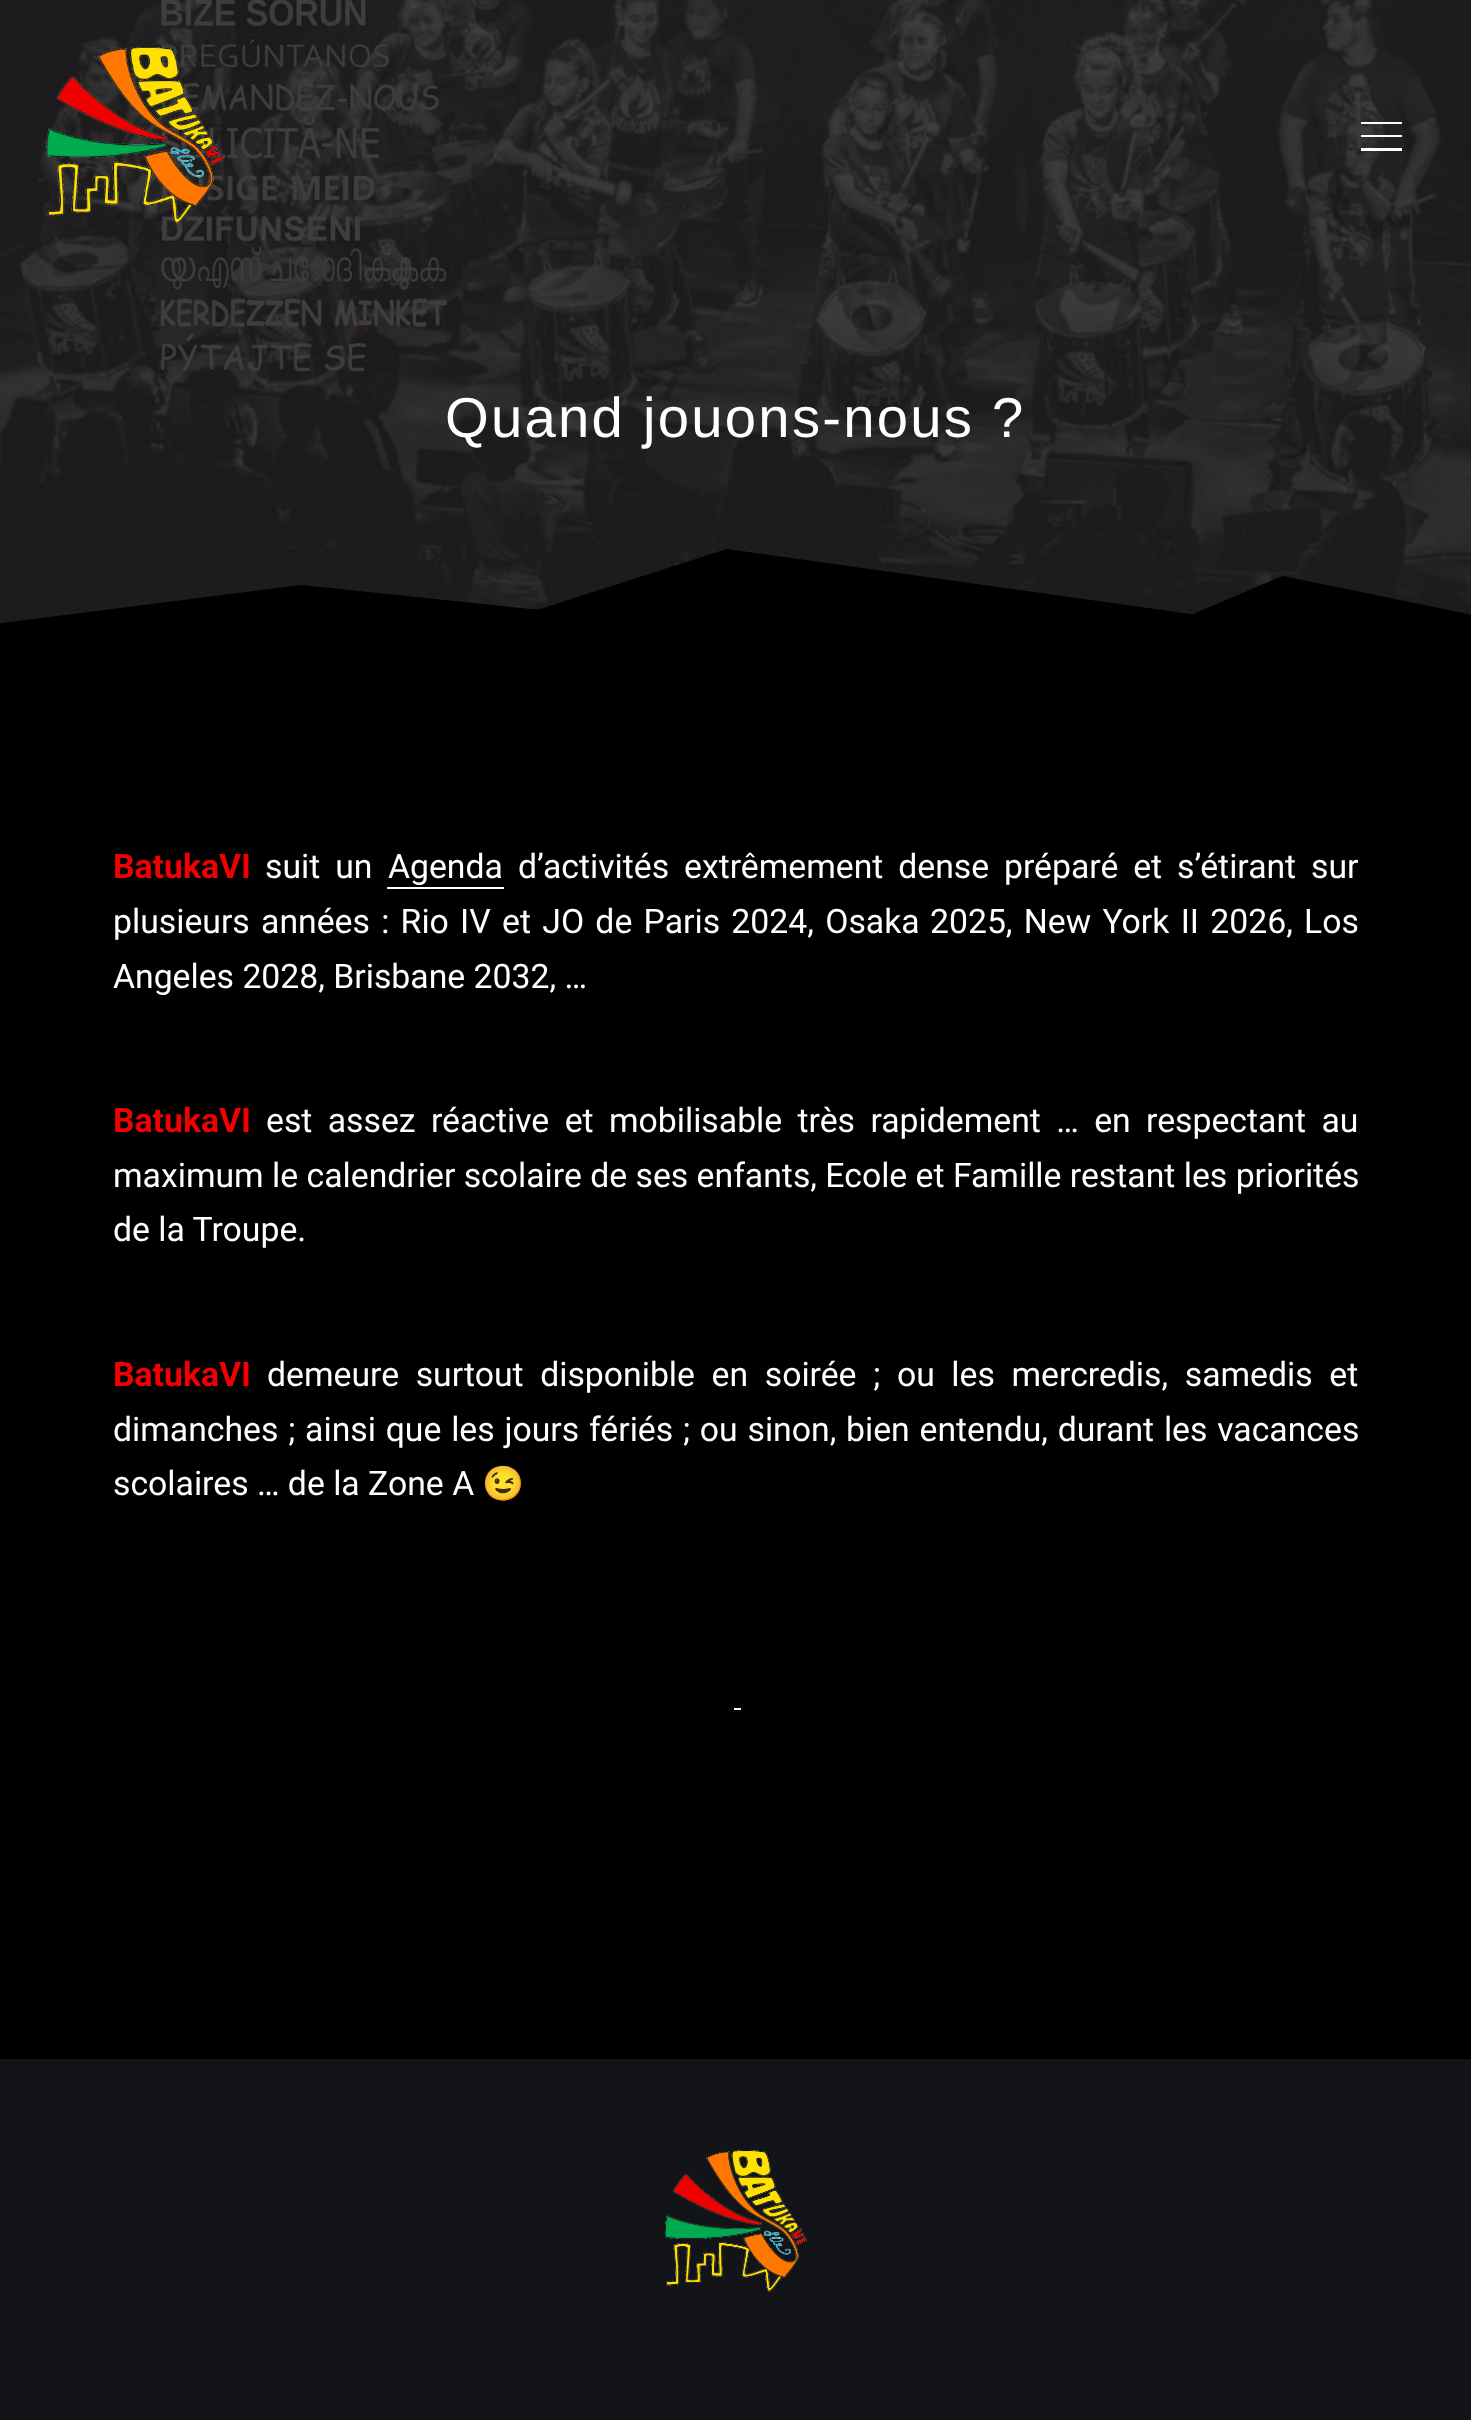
<!DOCTYPE html>
<meta charset="utf-8">
<style>body { margin: 0 } canvas { display: block }</style>
<canvas id="canvas" width="1471" height="2420"></canvas>
<img id="img1" src="images/2.png" hidden>
<img id="img2" src="images/1.png" hidden>
<img id="img3" src="images/3.png" hidden>
<img id="img4" src="images/4.png" hidden>
<script>
window.onload = function () {
    const canvas = document.getElementById('canvas');
    const context = canvas.getContext('2d');
    context.miterLimit = 4;
    context.fontKerning = 'normal';

    context.fillStyle = 'rgb(18, 20, 24)';
    context.fillRect(0, 0, 1471, 2420);
    context.drawImage(document.getElementById('img1'), 0, 0, 1471, 624);
    context.drawImage(document.getElementById('img2'), 46, 47, 179, 177);
    context.fillStyle = 'rgb(255, 255, 255)';
    context.beginPath();
    context.moveTo(1361, 151);
    context.lineTo(1402, 151);
    context.lineTo(1402, 148);
    context.lineTo(1361, 148);
    context.closePath();
    context.moveTo(1361, 122);
    context.lineTo(1361, 124);
    context.lineTo(1402, 124);
    context.lineTo(1402, 122);
    context.closePath();
    context.moveTo(1361, 137);
    context.lineTo(1402, 137);
    context.lineTo(1402, 135);
    context.lineTo(1361, 135);
    context.closePath();
    context.fill();
    context.fillStyle = 'rgb(0, 0, 0)';
    context.fillRect(0, 637, 1471, 1422);
    context.drawImage(document.getElementById('img3'), 0, 549, 1471, 88);
    context.fillStyle = 'rgb(255, 255, 255)';
    context.fillRect(387, 887, 117, 2);
    context.fillRect(734, 1708, 7, 2);
    context.drawImage(document.getElementById('img4'), 665, 2150, 142, 142);
    context.letterSpacing = '2.25px';
    context.font = '56.25px Liberation Sans';
    context.fillText('Quand jouons-nous ?', 445, 437);
    context.letterSpacing = '0px';
    context.font = 'bold 33.75px Roboto';
    context.fillStyle = 'rgb(240, 0, 0)';
    context.fillText('BatukaVI', 113, 878);
    context.wordSpacing = '6.5px';
    context.font = '33.75px Roboto';
    context.fillStyle = 'rgb(255, 255, 255)';
    context.fillText('suit un', 265, 878);
    context.wordSpacing = '0px';
    context.fillText('Agenda', 388, 878);
    context.wordSpacing = '6.5px';
    context.fillText('d’activités extrêmement dense préparé et s’étirant sur', 518, 878);
    context.wordSpacing = '2.9px';
    context.fillText('plusieurs années : Rio IV et JO de Paris 2024, Osaka', 113, 933);
    context.fillText('2025, New York II 2026, Los', 930, 933);
    context.wordSpacing = '0px';
    context.fillText('Angeles 2028, Brisbane 2032, …', 113, 988);
    context.font = 'bold 33.75px Roboto';
    context.fillStyle = 'rgb(240, 0, 0)';
    context.fillText('BatukaVI', 113, 1132);
    context.wordSpacing = '7px';
    context.font = '33.75px Roboto';
    context.fillStyle = 'rgb(255, 255, 255)';
    context.fillText('est assez réactive et mobilisable très rapidement … en respectant au', 266, 1132);
    context.wordSpacing = '0px';
    context.fillText('maximum le calendrier scolaire de ses enfants, Ecole et Famille restant les priorités', 113, 1187);
    context.fillText('de la Troupe.', 113, 1241);
    context.font = 'bold 33.75px Roboto';
    context.fillStyle = 'rgb(240, 0, 0)';
    context.fillText('BatukaVI', 113, 1386);
    context.wordSpacing = '8.25px';
    context.font = '33.75px Roboto';
    context.fillStyle = 'rgb(255, 255, 255)';
    context.fillText('demeure surtout disponible en soirée ; ou les mercredis, samedis et', 267, 1386);
    context.wordSpacing = '1.4px';
    context.fillText('dimanches ; ainsi que les jours fériés ; ou sinon, bien entendu, durant les vacances', 113, 1441);
    context.wordSpacing = '0px';
    context.fillText('scolaires … de la Zone A', 113, 1495);
    context.font = '33.75px Noto Color Emoji';
    context.fillText('😉', 482, 1495);
};
</script>
